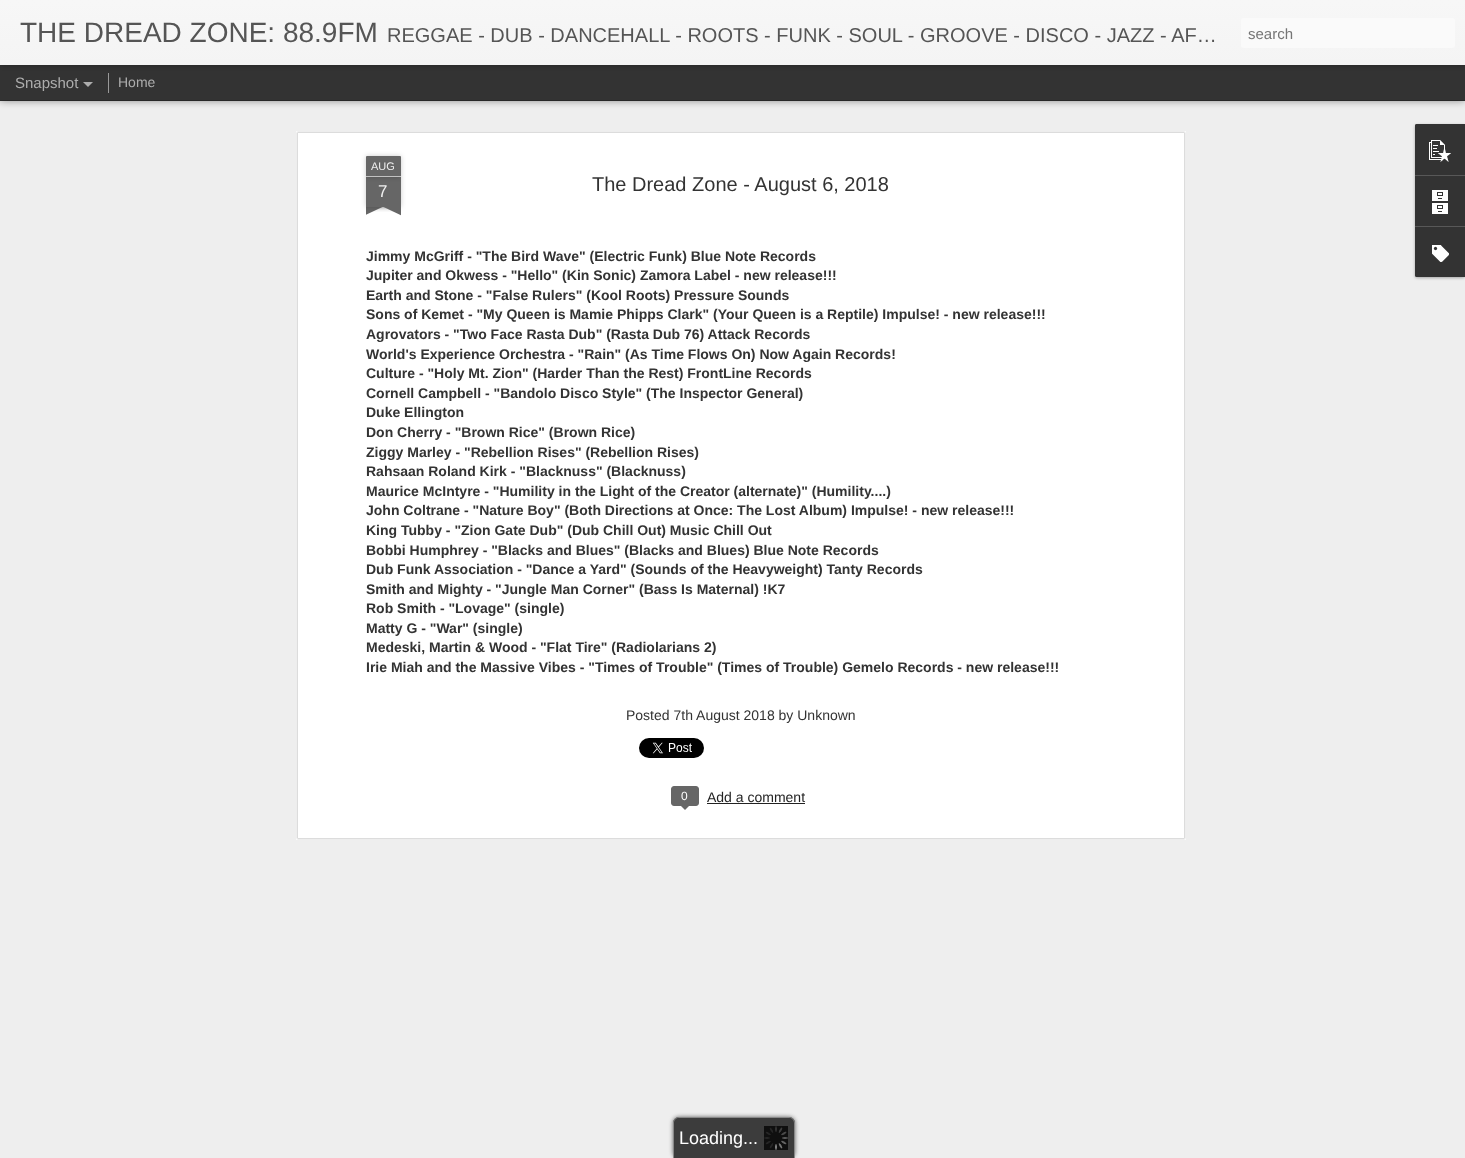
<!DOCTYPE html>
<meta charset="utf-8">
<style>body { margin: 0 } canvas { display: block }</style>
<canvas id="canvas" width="1465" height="1158"></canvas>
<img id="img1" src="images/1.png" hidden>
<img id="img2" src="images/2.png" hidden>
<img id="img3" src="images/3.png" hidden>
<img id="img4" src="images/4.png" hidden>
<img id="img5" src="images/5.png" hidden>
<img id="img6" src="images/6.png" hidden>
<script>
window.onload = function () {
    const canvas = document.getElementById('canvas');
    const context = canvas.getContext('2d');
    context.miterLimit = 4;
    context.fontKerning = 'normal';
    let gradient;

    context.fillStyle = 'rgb(51, 51, 51)';
    context.fillRect(0, 0, 1465, 1158);
    context.fillStyle = 'rgb(238, 238, 238)';
    context.fillRect(0, 101, 1465, 1057);
    context.fillStyle = 'rgba(0, 0, 0, 0.5)';
    context.filter = 'blur(4px)';
    context.beginPath();
    context.rect(0, 65, 1465, 35);
    context.fill();
    context.filter = 'none';
    context.fillStyle = 'rgb(51, 51, 51)';
    context.fillRect(0, 65, 1465, 35);
    context.fillStyle = 'rgb(153, 153, 153)';
    context.fillRect(108, 73, 1, 20);
    context.fillStyle = 'rgba(0, 0, 0, 0.3)';
    context.filter = 'blur(2.5px)';
    context.beginPath();
    context.rect(0, 0, 1465, 65);
    context.fill();
    context.filter = 'none';
    gradient = context.createLinearGradient(0, 0, 0, 65);
    gradient.addColorStop(0, 'rgb(247, 247, 247)');
    gradient.addColorStop(1, 'rgb(244, 244, 244)');
    context.fillStyle = gradient;
    context.fillRect(0, 0, 1465, 65);
    context.fillStyle = 'rgb(250, 250, 250)';
    context.beginPath();
    context.roundRect(1241, 18, 214, 30, 3);
    context.fill();
    context.fillStyle = 'rgb(173, 173, 173)';
    context.beginPath();
    context.moveTo(83, 82);
    context.lineTo(93, 82);
    context.lineTo(88, 87);
    context.closePath();
    context.fill();
    context.fillStyle = 'rgb(255, 255, 255)';
    context.fillRect(296, 131, 890, 709);
    context.drawImage(document.getElementById('img1'), 296, 131, 890, 709);
    context.fillStyle = 'rgba(0, 0, 0, 0.2)';
    context.filter = 'blur(2.5px)';
    context.beginPath();
    context.rect(366, 177, 35, 30);
    context.fill();
    context.filter = 'none';
    context.fillStyle = 'rgb(102, 102, 102)';
    context.fillRect(366, 177, 35, 30);
    context.fillStyle = 'rgba(0, 0, 0, 0.2)';
    context.filter = 'blur(2.5px)';
    context.beginPath();
    context.roundRect(366, 156, 35, 21, 1);
    context.fill();
    context.filter = 'none';
    context.fillStyle = 'rgb(102, 102, 102)';
    context.beginPath();
    context.roundRect(366, 156, 35, 21, [1, 1, 0, 0]);
    context.fill();
    context.fillStyle = 'rgb(194, 194, 194)';
    context.fillRect(366, 176, 35, 1);
    context.save();
    context.beginPath();
    context.rect(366, 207, 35, 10);
    context.clip();
    context.fillStyle = 'rgba(0, 0, 0, 0.2)';
    context.filter = 'blur(2.5px)';
    context.beginPath();
    context.rect(357, 197, 50, 10);
    context.fill();
    context.filter = 'none';
    context.restore();
    context.save();
    context.beginPath();
    context.rect(366, 207, 35, 10);
    context.clip();
    context.fillStyle = 'rgb(102, 102, 102)';
    context.beginPath();
    context.moveTo(357, 208);
    context.lineTo(402, 187);
    context.lineTo(406, 196);
    context.lineTo(361, 217);
    context.closePath();
    context.fill();
    context.restore();
    context.save();
    context.beginPath();
    context.rect(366, 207, 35, 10);
    context.clip();
    context.fillStyle = 'rgba(0, 0, 0, 0.2)';
    context.filter = 'blur(2.5px)';
    context.beginPath();
    context.rect(360, 197, 50, 10);
    context.fill();
    context.filter = 'none';
    context.restore();
    context.save();
    context.beginPath();
    context.rect(366, 207, 35, 10);
    context.clip();
    context.fillStyle = 'rgb(102, 102, 102)';
    context.beginPath();
    context.moveTo(364, 187);
    context.lineTo(409, 208);
    context.lineTo(405, 217);
    context.lineTo(360, 196);
    context.closePath();
    context.fill();
    context.restore();
    context.drawImage(document.getElementById('img2'), 639, 738, 65, 20);
    context.fillStyle = 'rgb(102, 102, 102)';
    context.beginPath();
    context.roundRect(671.5, 786.5, 27, 19, 2.5);
    context.fill();
    context.strokeStyle = 'rgb(102, 102, 102)';
    context.stroke();
    context.beginPath();
    context.moveTo(680, 805);
    context.lineTo(690, 805);
    context.lineTo(685, 810);
    context.closePath();
    context.fill();
    context.fillStyle = 'rgb(34, 34, 34)';
    context.fillRect(707, 803, 98, 1);
    context.fillStyle = 'rgba(0, 0, 0, 0.3)';
    context.filter = 'blur(1.5px)';
    context.beginPath();
    context.roundRect(1415, 125, 50, 153, 2);
    context.fill();
    context.filter = 'none';
    context.fillStyle = 'rgb(51, 51, 51)';
    context.beginPath();
    context.roundRect(1415, 124, 50, 153, [2, 0, 0, 2]);
    context.fill();
    context.beginPath();
    context.roundRect(1415, 124, 50, 51, [2, 0, 0, 0]);
    context.fill();
    context.drawImage(document.getElementById('img3'), 1429, 140, 22, 22);
    context.fillStyle = 'rgb(88, 88, 88)';
    context.fillRect(1415, 175, 50, 1);
    context.drawImage(document.getElementById('img4'), 1432, 190, 16, 24);
    context.fillStyle = 'rgb(51, 51, 51)';
    context.beginPath();
    context.roundRect(1415, 226, 50, 51, [0, 0, 0, 2]);
    context.fill();
    context.fillStyle = 'rgb(88, 88, 88)';
    context.fillRect(1415, 226, 50, 1);
    context.drawImage(document.getElementById('img5'), 1432, 245, 17, 17);
    context.fillStyle = 'rgb(98, 98, 98)';
    context.filter = 'blur(2px)';
    context.beginPath();
    context.roundRect(673, 1117, 122, 41, 6);
    context.fill();
    context.filter = 'none';
    context.fillStyle = 'rgb(60, 60, 60)';
    context.beginPath();
    context.roundRect(673, 1117, 122, 41, [6, 6, 0, 0]);
    context.fill();
    context.fillStyle = 'rgb(136, 136, 136)';
    context.beginPath();
    context.moveTo(679, 1117);
    context.lineTo(789, 1117);
    context.bezierCurveTo(792, 1117, 795, 1120, 795, 1123);
    context.lineTo(795, 1158);
    context.lineTo(673, 1158);
    context.lineTo(673, 1123);
    context.bezierCurveTo(673, 1120, 676, 1117, 679, 1117);
    context.closePath();
    context.moveTo(679, 1118);
    context.lineTo(789, 1118);
    context.bezierCurveTo(792, 1118, 794, 1120, 794, 1123);
    context.lineTo(794, 1158);
    context.lineTo(674, 1158);
    context.lineTo(674, 1123);
    context.bezierCurveTo(674, 1120, 676, 1118, 679, 1118);
    context.closePath();
    context.fill('evenodd');
    context.drawImage(document.getElementById('img6'), 764, 1126, 24, 24);
    context.font = '28px Liberation Sans';
    context.fillStyle = 'rgb(85, 85, 85)';
    context.fillText('THE DREAD ZONE: 88.9FM', 20, 42);
    context.font = '20px Liberation Sans';
    context.fillText('REGGAE - DUB - DANCEHALL - ROOTS - FUNK - SOUL - GROOVE - DISCO - JAZZ - AF…', 387, 42);
    context.font = '15px Liberation Sans';
    context.fillStyle = 'rgb(117, 117, 117)';
    context.fillText('search', 1248, 39);
    context.fillStyle = 'rgb(173, 173, 173)';
    context.fillText('Snapshot', 15, 88);
    context.font = '14px Liberation Sans';
    context.fillText('Home', 118, 87);
    context.font = '11px Liberation Sans';
    context.fillStyle = 'rgb(238, 238, 238)';
    context.fillText('AUG', 371, 170);
    context.font = '17px Liberation Sans';
    context.fillText('7', 378, 197);
    context.font = '20px Liberation Sans';
    context.fillStyle = 'rgb(51, 51, 51)';
    context.fillText('The Dread Zone - August 6, 2018', 592, 191);
    context.font = 'bold 14px Liberation Sans';
    context.fillText('Jimmy McGriff - "The Bird Wave" (Electric Funk) Blue Note Records', 366, 261);
    context.fillText('Jupiter and Okwess - "Hello" (Kin Sonic) Zamora Label - new release!!!', 366, 280);
    context.fillText('Earth and Stone - "False Rulers" (Kool Roots) Pressure Sounds', 366, 300);
    context.fillText('Sons of Kemet - "My Queen is Mamie Phipps Clark" (Your Queen is a Reptile) Impulse! - new release!!!', 366, 319);
    context.fillText('Agrovators - "Two Face Rasta Dub" (Rasta Dub 76) Attack Records', 366, 339);
    context.fillText('World\'s Experience Orchestra - "Rain" (As Time Flows On) Now Again Records!', 366, 359);
    context.fillText('Culture - "Holy Mt. Zion" (Harder Than the Rest) FrontLine Records', 366, 378);
    context.fillText('Cornell Campbell - "Bandolo Disco Style" (The Inspector General)', 366, 398);
    context.fillText('Duke Ellington', 366, 417);
    context.fillText('Don Cherry - "Brown Rice" (Brown Rice)', 366, 437);
    context.fillText('Ziggy Marley - "Rebellion Rises" (Rebellion Rises)', 366, 457);
    context.fillText('Rahsaan Roland Kirk - "Blacknuss" (Blacknuss)', 366, 476);
    context.fillText('Maurice McIntyre - "Humility in the Light of the Creator (alternate)" (Humility....)', 366, 496);
    context.fillText('John Coltrane - "Nature Boy" (Both Directions at Once: The Lost Album) Impulse! - new release!!!', 366, 515);
    context.fillText('King Tubby - "Zion Gate Dub" (Dub Chill Out) Music Chill Out', 366, 535);
    context.fillText('Bobbi Humphrey - "Blacks and Blues" (Blacks and Blues) Blue Note Records', 366, 555);
    context.fillText('Dub Funk Association - "Dance a Yard" (Sounds of the Heavyweight) Tanty Records', 366, 574);
    context.fillText('Smith and Mighty - "Jungle Man Corner" (Bass Is Maternal) !K7', 366, 594);
    context.fillText('Rob Smith - "Lovage" (single)', 366, 613);
    context.fillText('Matty G - "War" (single)', 366, 633);
    context.fillText('Medeski, Martin & Wood - "Flat Tire" (Radiolarians 2)', 366, 652);
    context.fillText('Irie Miah and the Massive Vibes - "Times of Trouble" (Times of Trouble) Gemelo Records - new release!!!', 366, 672);
    context.font = '14px Liberation Sans';
    context.fillText('Posted 7th August 2018 by Unknown', 626, 720);
    context.font = '12px Liberation Sans';
    context.fillStyle = 'rgb(255, 255, 255)';
    context.fillText('0', 681, 800);
    context.font = '14px Liberation Sans';
    context.fillStyle = 'rgb(34, 34, 34)';
    context.fillText('Add a comment', 707, 802);
    context.font = '18px Liberation Sans';
    context.fillStyle = 'rgb(255, 255, 255)';
    context.fillText('Loading...', 679, 1144);
};
</script>
